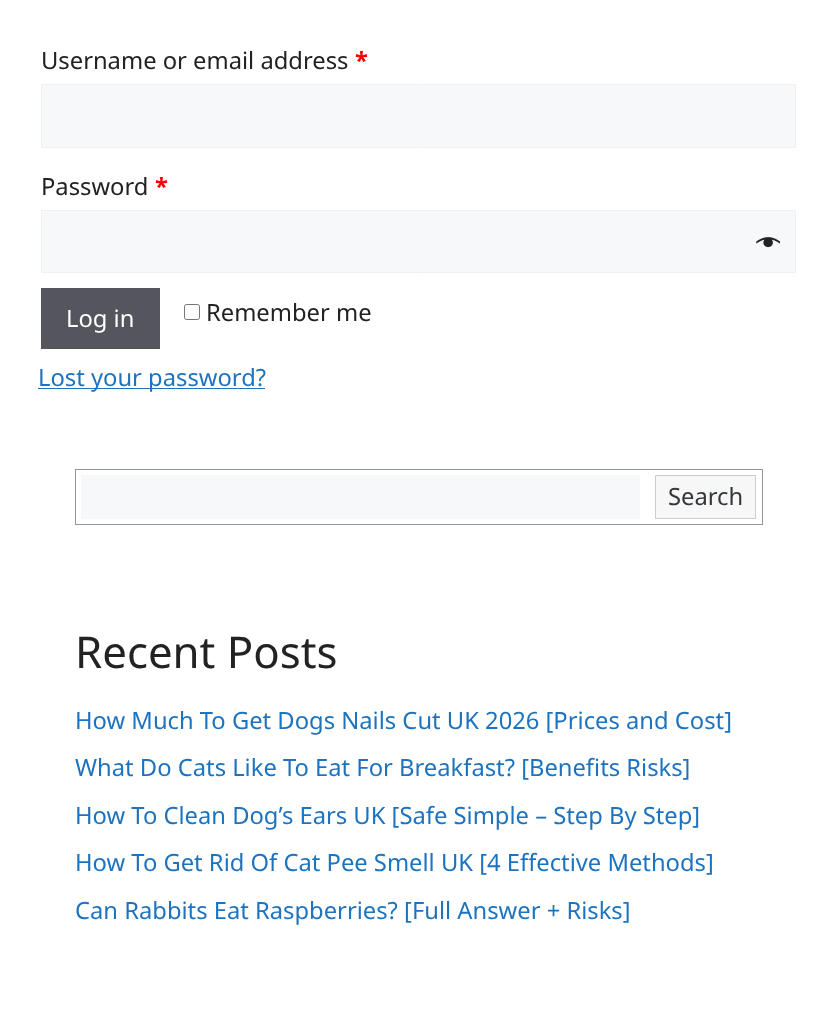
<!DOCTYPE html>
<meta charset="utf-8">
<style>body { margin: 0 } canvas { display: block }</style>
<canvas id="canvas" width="837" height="1009"></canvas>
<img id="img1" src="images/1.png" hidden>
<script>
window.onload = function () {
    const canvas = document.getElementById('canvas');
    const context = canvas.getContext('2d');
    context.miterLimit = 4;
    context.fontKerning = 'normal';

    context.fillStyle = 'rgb(255, 255, 255)';
    context.fillRect(0, 0, 837, 1009);
    context.fillStyle = 'rgb(247, 248, 249)';
    context.beginPath();
    context.rect(41.5, 84.5, 754, 63);
    context.fill();
    context.strokeStyle = 'rgb(240, 240, 240)';
    context.stroke();
    context.beginPath();
    context.rect(41.5, 210.5, 754, 62);
    context.fill();
    context.stroke();
    context.drawImage(document.getElementById('img1'), 756, 237, 24, 11);
    context.fillStyle = 'rgb(85, 85, 94)';
    context.fillRect(41, 288, 119, 61);
    context.beginPath();
    context.roundRect(184.5, 304.5, 15, 15, 2);
    context.strokeStyle = 'rgb(118, 118, 118)';
    context.stroke();
    context.fillStyle = 'rgb(30, 115, 190)';
    context.fillRect(38, 388, 227, 1);
    context.strokeStyle = 'rgb(148, 148, 148)';
    context.strokeRect(75.5, 469.5, 687, 55);
    context.fillStyle = 'rgb(247, 248, 249)';
    context.fillRect(81, 475, 559, 44);
    context.fillStyle = 'rgb(247, 247, 247)';
    context.beginPath();
    context.rect(655.5, 475.5, 100, 43);
    context.fill();
    context.strokeStyle = 'rgb(204, 204, 204)';
    context.stroke();
    context.font = '23.75px Noto Sans';
    context.fillStyle = 'rgb(34, 34, 34)';
    context.fillText('Username or email address', 41, 69);
    context.font = 'bold 23.75px Noto Sans';
    context.fillStyle = 'rgb(255, 0, 0)';
    context.fillText('*', 355, 69);
    context.font = '23.75px Noto Sans';
    context.fillStyle = 'rgb(34, 34, 34)';
    context.fillText('Password', 41, 195);
    context.font = 'bold 23.75px Noto Sans';
    context.fillStyle = 'rgb(255, 0, 0)';
    context.fillText('*', 155, 195);
    context.font = '23.75px Noto Sans';
    context.fillStyle = 'rgb(255, 255, 255)';
    context.fillText('Log in', 66, 327);
    context.fillStyle = 'rgb(34, 34, 34)';
    context.fillText('Remember me', 206, 321);
    context.fillStyle = 'rgb(30, 115, 190)';
    context.fillText('Lost your password?', 38, 386);
    context.fillStyle = 'rgb(50, 55, 60)';
    context.fillText('Search', 668, 505);
    context.font = '43.75px Noto Sans';
    context.fillStyle = 'rgb(34, 34, 34)';
    context.fillText('Recent Posts', 75, 668);
    context.font = '23.75px Noto Sans';
    context.fillStyle = 'rgb(30, 115, 190)';
    context.fillText('How Much To Get Dogs Nails Cut UK 2026 [Prices and Cost]', 75, 729);
    context.fillText('What Do Cats Like To Eat For Breakfast? [Benefits Risks]', 75, 776);
    context.fillText('How To Clean Dog’s Ears UK [Safe Simple – Step By Step]', 75, 824);
    context.fillText('How To Get Rid Of Cat Pee Smell UK [4 Effective Methods]', 75, 871);
    context.fillText('Can Rabbits Eat Raspberries? [Full Answer + Risks]', 75, 919);
};
</script>
